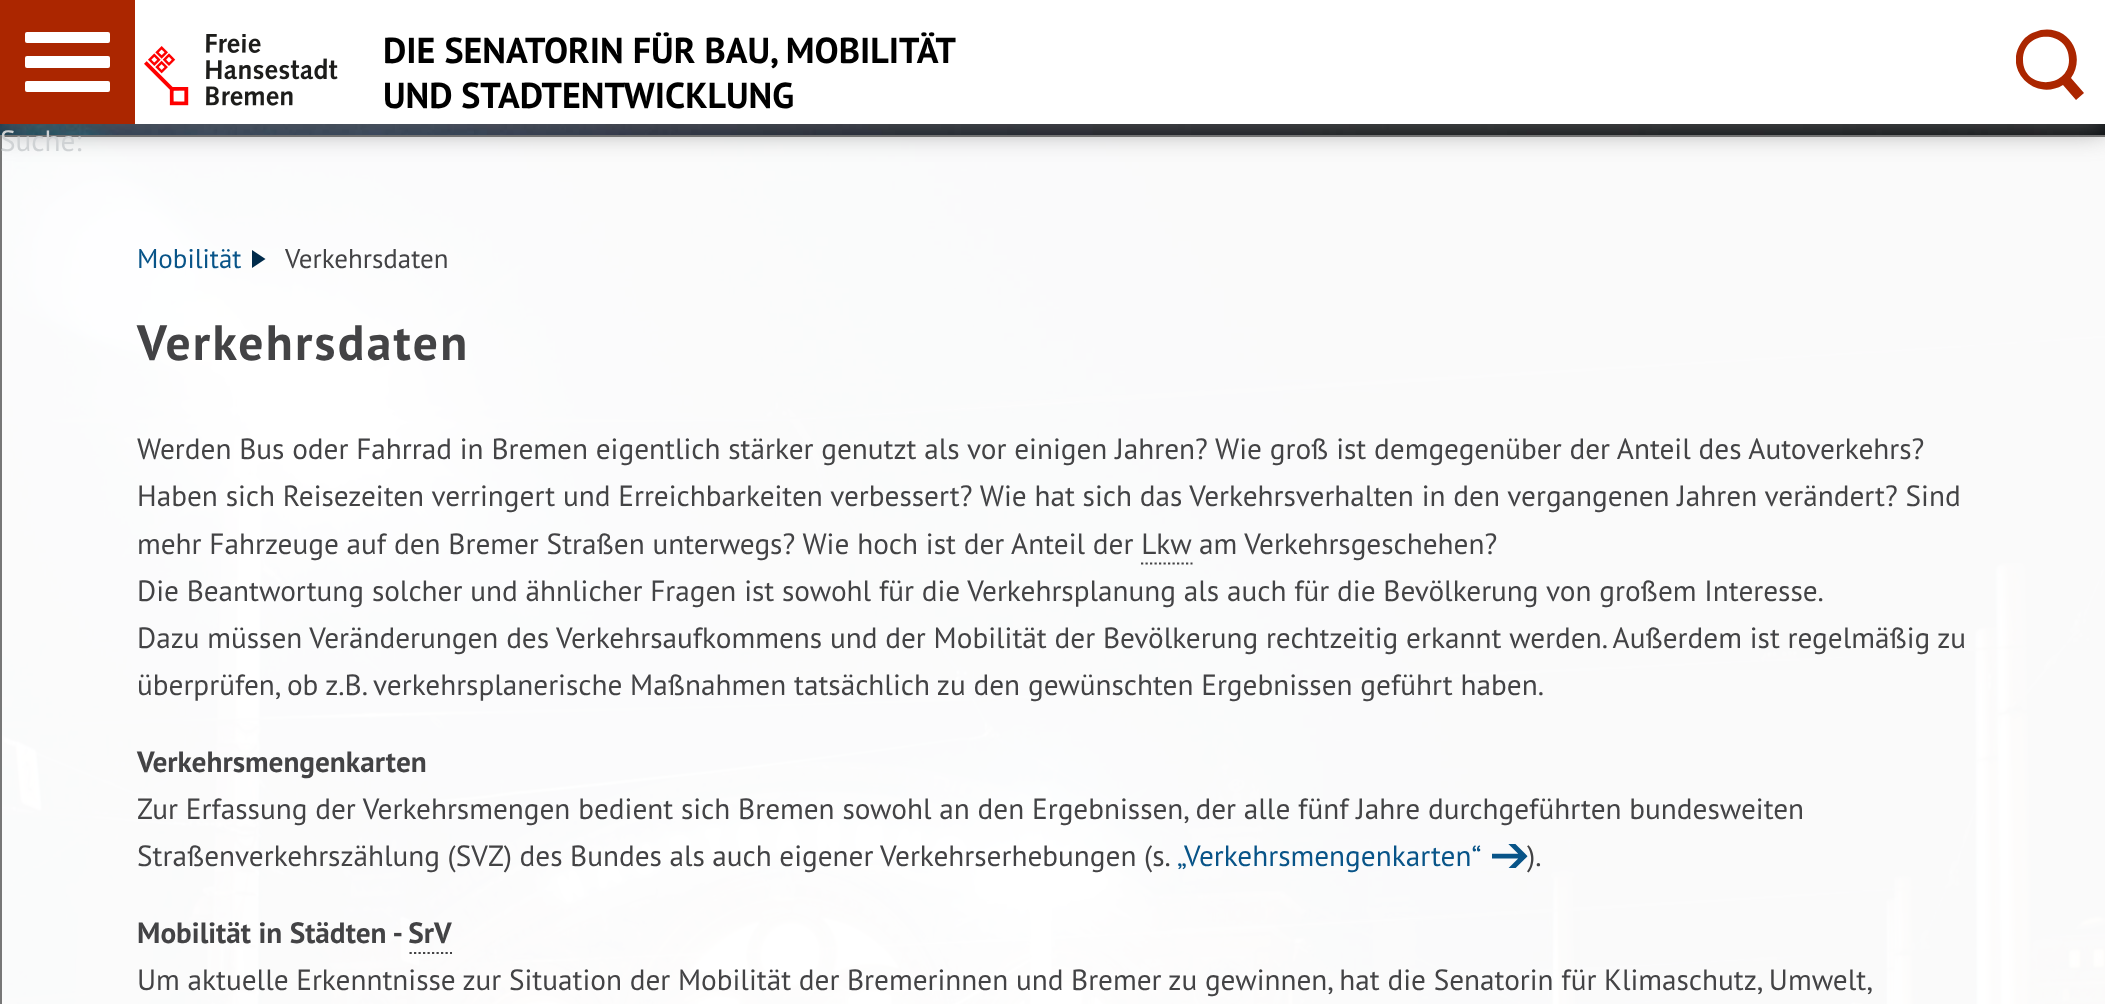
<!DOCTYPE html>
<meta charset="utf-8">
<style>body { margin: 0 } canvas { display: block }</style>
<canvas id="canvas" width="2105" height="1004"></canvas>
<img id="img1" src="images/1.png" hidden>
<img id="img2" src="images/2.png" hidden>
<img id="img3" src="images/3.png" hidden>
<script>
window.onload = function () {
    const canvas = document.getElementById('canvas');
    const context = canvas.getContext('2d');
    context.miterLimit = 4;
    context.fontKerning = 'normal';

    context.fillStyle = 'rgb(255, 255, 255)';
    context.fillRect(0, 0, 2105, 1004);
    context.drawImage(document.getElementById('img1'), 0, 124, 2105, 880);
    context.strokeStyle = 'rgb(119, 119, 119)';
    context.lineWidth = 2;
    context.strokeRect(1, 136, 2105, 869);
    context.fillStyle = 'rgba(100, 100, 100, 0.8)';
    context.filter = 'blur(14.5px)';
    context.beginPath();
    context.rect(0, 5, 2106, 123);
    context.fill();
    context.filter = 'none';
    context.fillStyle = 'rgb(171, 38, 0)';
    context.fillRect(0, 0, 135, 124);
    context.fillStyle = 'rgb(255, 255, 255)';
    context.beginPath();
    context.roundRect(25, 32, 85, 11, 2);
    context.fill();
    context.beginPath();
    context.roundRect(25, 56, 85, 12, 2);
    context.fill();
    context.beginPath();
    context.roundRect(25, 81, 85, 11, 2);
    context.fill();
    context.fillRect(135, 0, 1970, 124);
    context.drawImage(document.getElementById('img2'), 144, 34, 194, 72);
    context.save();
    context.beginPath();
    context.rect(2016, 29, 68, 72);
    context.clip();
    context.fillStyle = 'rgb(171, 38, 0)';
    context.beginPath();
    context.moveTo(2084, 93);
    context.lineTo(2071, 78);
    context.bezierCurveTo(2081, 64, 2078, 44, 2063, 34);
    context.bezierCurveTo(2055, 29, 2044, 28, 2035, 32);
    context.bezierCurveTo(2029, 34, 2024, 38, 2021, 43);
    context.bezierCurveTo(2003, 70, 2035, 102, 2063, 85);
    context.lineTo(2076, 100);
    context.closePath();
    context.moveTo(2023, 60);
    context.bezierCurveTo(2023, 29, 2069, 29, 2069, 60);
    context.bezierCurveTo(2069, 89, 2023, 90, 2023, 60);
    context.closePath();
    context.fill();
    context.restore();
    context.fillStyle = 'rgb(0, 43, 75)';
    context.beginPath();
    context.moveTo(252, 268);
    context.lineTo(252, 250);
    context.lineTo(265.5, 259);
    context.closePath();
    context.fill();
    context.beginPath();
    context.moveTo(1141, 563.5);
    context.lineTo(1192.5, 563.5);
    context.strokeStyle = 'rgb(67, 67, 69)';
    context.lineWidth = 2.2;
    context.setLineDash([2.25, 2.25]);
    context.stroke();
    context.beginPath();
    context.moveTo(409.5, 953);
    context.lineTo(452, 953);
    context.stroke();
    context.font = 'bold 36px PT Sans';
    context.fillStyle = 'rgb(0, 0, 0)';
    context.fillText('DIE SENATORIN FÜR BAU, MOBILITÄT', 383, 63);
    context.fillText('UND STADTENTWICKLUNG', 383, 108);
    context.font = '29.25px PT Sans';
    context.fillStyle = 'rgb(207, 210, 212)';
    context.fillText('Suche:', 0, 151);
    context.font = '27px PT Sans';
    context.fillStyle = 'rgb(8, 84, 136)';
    context.fillText('Mobilität', 137, 268);
    context.fillStyle = 'rgb(67, 67, 69)';
    context.fillText('Verkehrsdaten', 285, 268);
    context.letterSpacing = '2.25px';
    context.font = 'bold 49.5px PT Sans';
    context.fillText('Verkehrsdaten', 137, 360);
    context.letterSpacing = '0px';
    context.font = '29.25px PT Sans';
    context.fillText('Werden Bus oder Fahrrad in Bremen eigentlich stärker genutzt als vor einigen Jahren? Wie groß ist demgegenüber der Anteil des Autoverkehrs?', 137, 459);
    context.fillText('Haben sich Reisezeiten verringert und Erreichbarkeiten verbessert? Wie hat sich das Verkehrsverhalten in den vergangenen Jahren verändert? Sind', 137, 506);
    context.fillText('mehr Fahrzeuge auf den Bremer Straßen unterwegs? Wie hoch ist der Anteil der Lkw am Verkehrsgeschehen?', 137, 554);
    context.fillText('Die Beantwortung solcher und ähnlicher Fragen ist sowohl für die Verkehrsplanung als auch für die Bevölkerung von großem Interesse.', 137, 601);
    context.fillText('Dazu müssen Veränderungen des Verkehrsaufkommens und der Mobilität der Bevölkerung rechtzeitig erkannt werden. Außerdem ist regelmäßig zu', 137, 648);
    context.fillText('überprüfen, ob z.B. verkehrsplanerische Maßnahmen tatsächlich zu den gewünschten Ergebnissen geführt haben.', 137, 695);
    context.font = 'bold 29.25px PT Sans';
    context.fillText('Verkehrsmengenkarten', 137, 772);
    context.font = '29.25px PT Sans';
    context.fillText('Zur Erfassung der Verkehrsmengen bedient sich Bremen sowohl an den Ergebnissen, der alle fünf Jahre durchgeführten bundesweiten', 137, 819);
    context.wordSpacing = '-0.25px';
    context.fillText('Straßenverkehrszählung (SVZ) des Bundes als auch eigener Verkehrserhebungen (s.', 137, 866);
    context.wordSpacing = '0px';
    context.fillStyle = 'rgb(8, 84, 136)';
    context.fillText('„Verkehrsmengenkarten“', 1177, 866);
    context.fillStyle = 'rgb(67, 67, 69)';
    context.fillText(').', 1527, 866);
    context.drawImage(document.getElementById('img3'), 1492, 844, 36, 24);
    context.font = 'bold 29.25px PT Sans';
    context.fillText('Mobilität in Städten - SrV', 137, 943);
    context.wordSpacing = '-0.1px';
    context.font = '29.25px PT Sans';
    context.fillText('Um aktuelle Erkenntnisse zur Situation der Mobilität der Bremerinnen und Bremer zu gewinnen, hat die Senatorin für Klimaschutz, Umwelt,', 137, 990);
};
</script>
